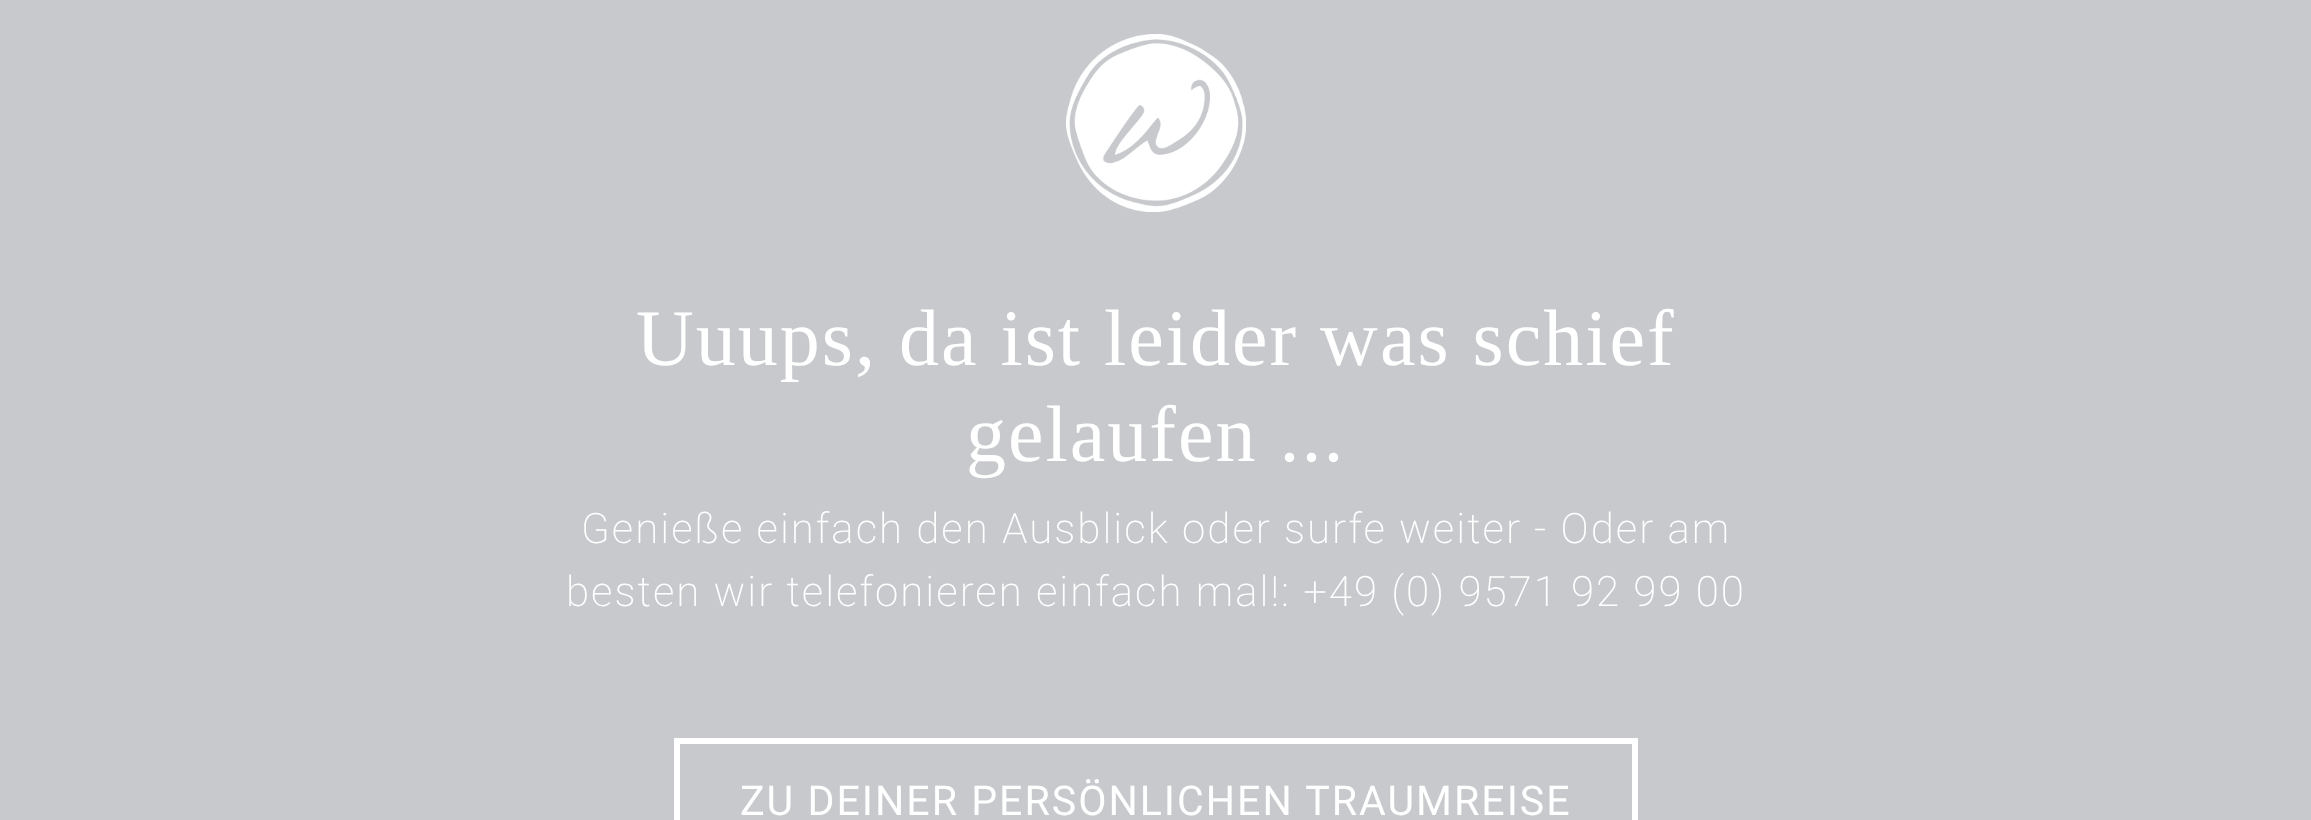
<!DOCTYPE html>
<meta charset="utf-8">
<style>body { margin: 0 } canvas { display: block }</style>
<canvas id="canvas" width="2311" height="820"></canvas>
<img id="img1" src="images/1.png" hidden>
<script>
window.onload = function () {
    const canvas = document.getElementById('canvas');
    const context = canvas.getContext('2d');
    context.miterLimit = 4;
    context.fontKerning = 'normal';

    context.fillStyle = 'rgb(199, 201, 204)';
    context.fillRect(0, 0, 2311, 820);
    context.drawImage(document.getElementById('img1'), 1066, 34, 180, 178);
    context.strokeStyle = 'rgb(255, 255, 255)';
    context.lineWidth = 6;
    context.strokeRect(677, 741, 958, 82);
    context.letterSpacing = '2px';
    context.font = '80px Liberation Serif';
    context.fillStyle = 'rgb(255, 255, 255)';
    context.fillText('Uuups, da ist leider was schief', 636, 365);
    context.fillText('gelaufen ...', 966, 461);
    context.font = '200 42px Roboto';
    context.fillText('Genieße einfach den Ausblick oder surfe weiter - Oder am', 581, 543);
    context.fillText('besten wir telefonieren einfach mal!: +49 (0) 9571 92 99 00', 566, 606);
    context.font = '41.1px Roboto';
    context.fillText('ZU DEINER PERSÖNLICHEN TRAUMREISE', 740, 815);
};
</script>
